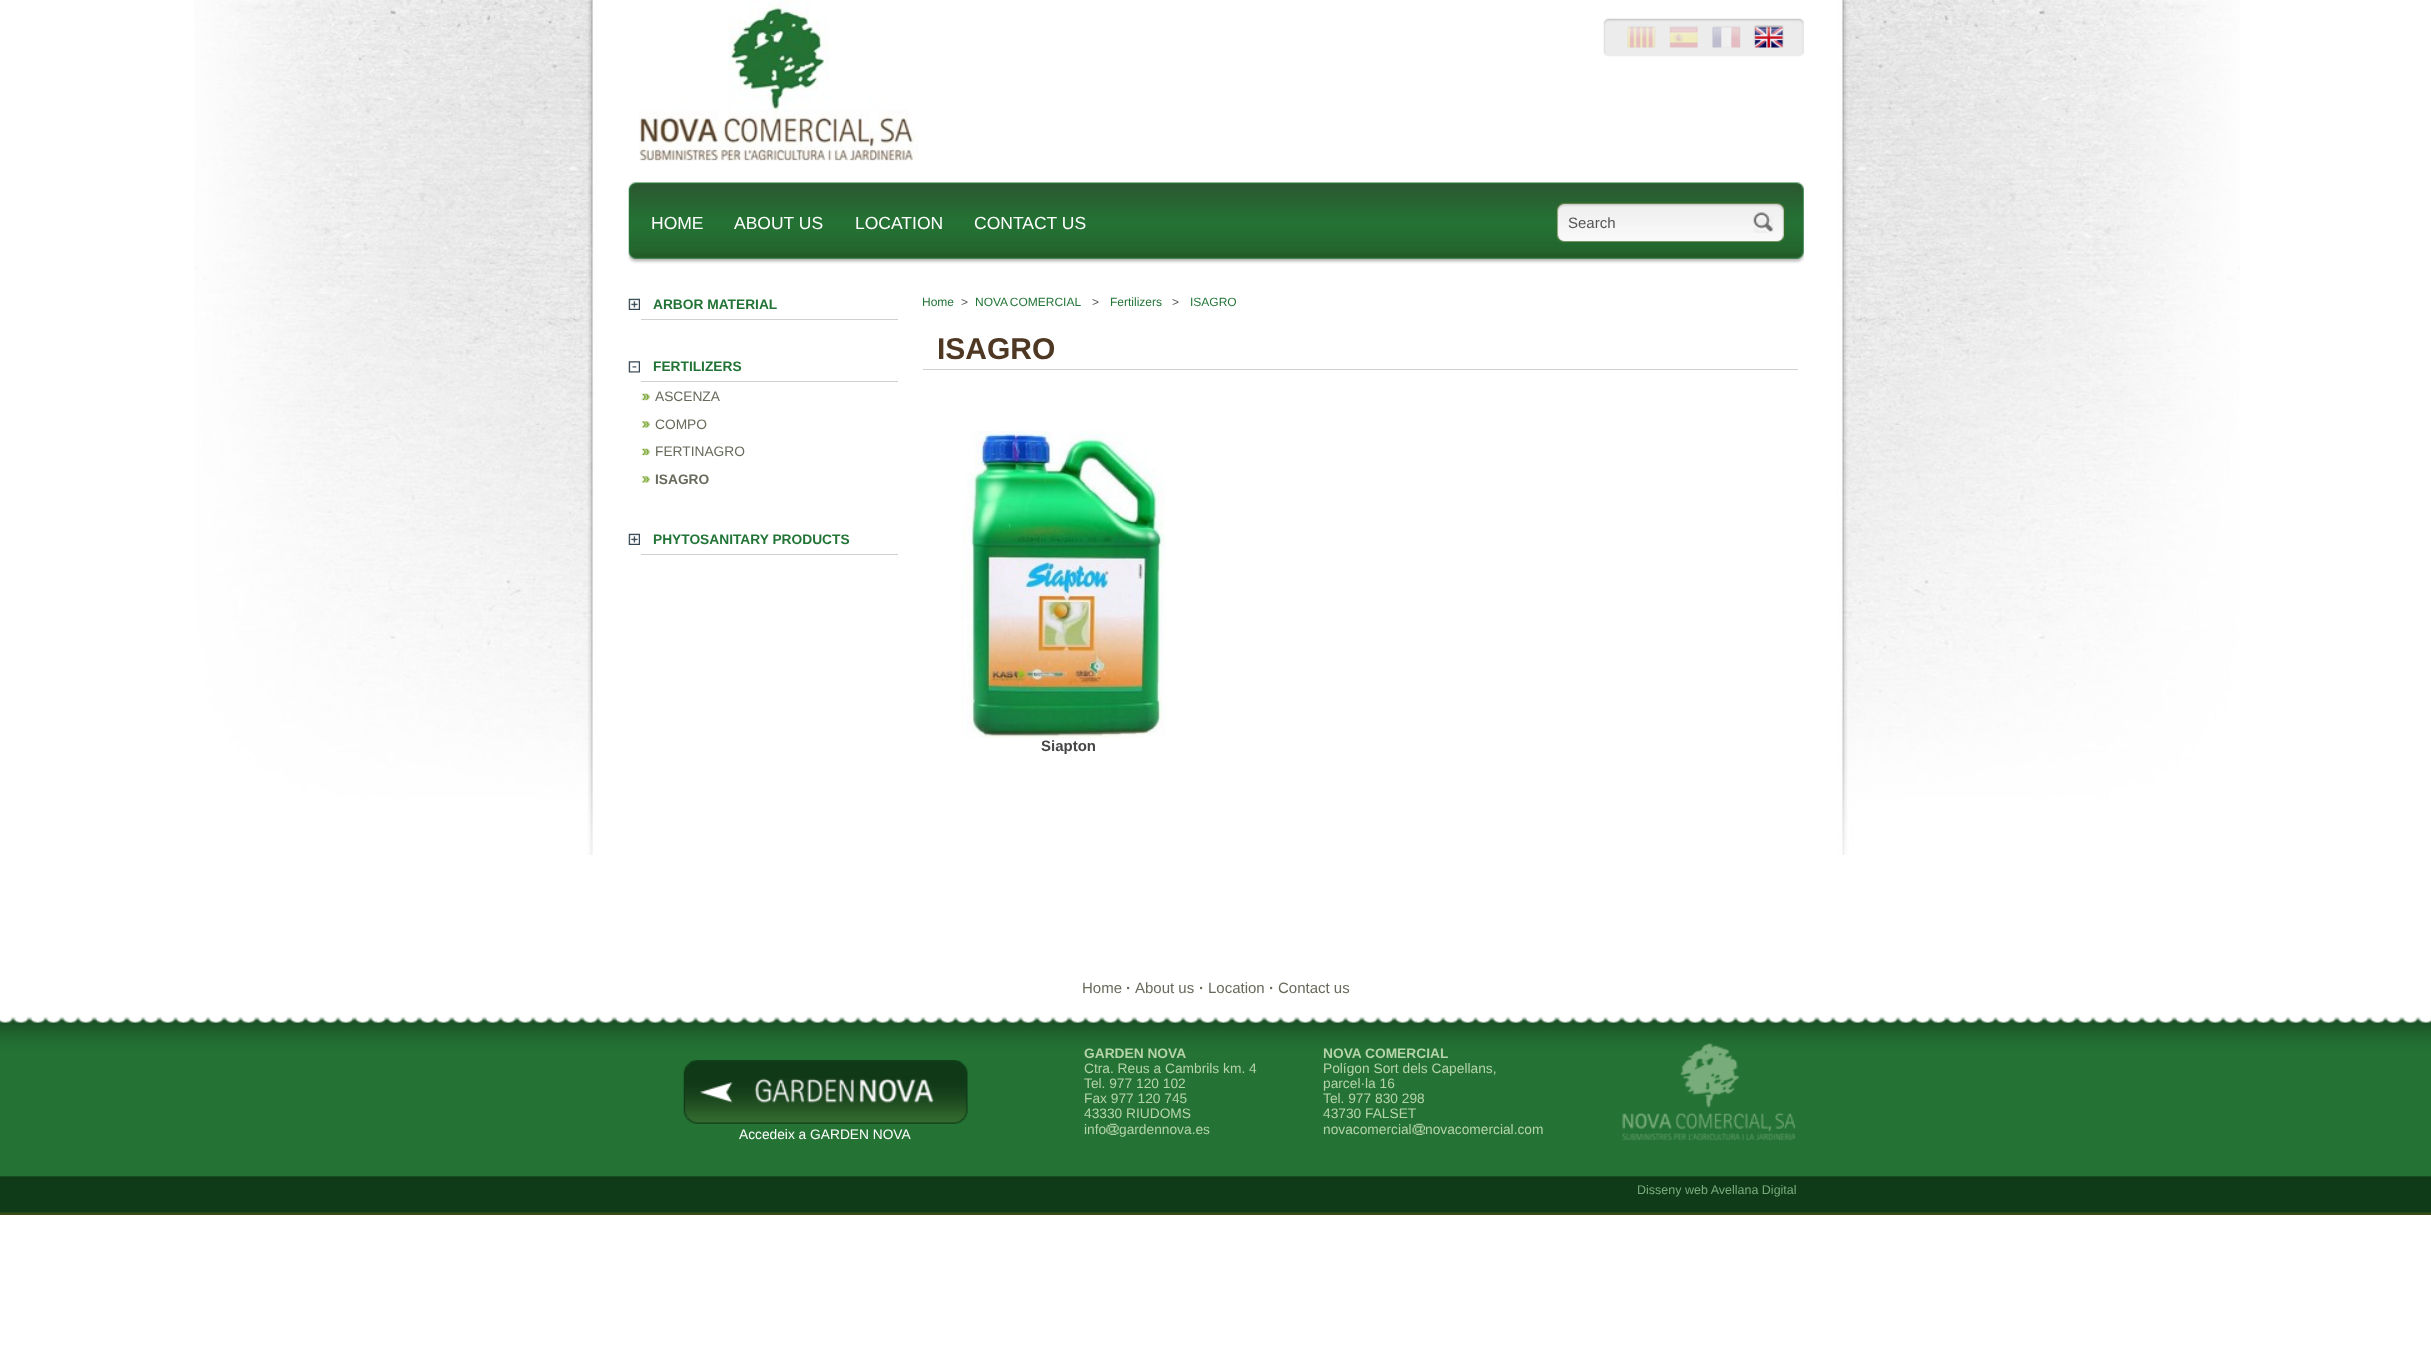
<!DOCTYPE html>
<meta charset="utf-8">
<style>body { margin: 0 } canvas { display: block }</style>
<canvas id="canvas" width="2431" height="1358"></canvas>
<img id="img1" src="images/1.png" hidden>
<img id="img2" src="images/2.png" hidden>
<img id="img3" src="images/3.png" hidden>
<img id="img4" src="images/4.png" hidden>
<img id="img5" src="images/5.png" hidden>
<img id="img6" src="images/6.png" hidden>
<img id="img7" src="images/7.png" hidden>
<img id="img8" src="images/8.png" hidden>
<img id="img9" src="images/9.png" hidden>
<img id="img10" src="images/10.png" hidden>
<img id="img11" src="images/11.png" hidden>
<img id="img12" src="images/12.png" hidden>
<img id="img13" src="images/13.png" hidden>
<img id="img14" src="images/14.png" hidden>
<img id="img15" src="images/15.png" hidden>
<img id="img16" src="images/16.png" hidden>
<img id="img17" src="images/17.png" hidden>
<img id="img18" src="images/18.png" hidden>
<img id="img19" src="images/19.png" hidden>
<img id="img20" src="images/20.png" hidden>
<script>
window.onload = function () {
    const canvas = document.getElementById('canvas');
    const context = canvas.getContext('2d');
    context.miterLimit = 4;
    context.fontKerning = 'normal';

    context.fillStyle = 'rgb(255, 255, 255)';
    context.fillRect(0, 0, 2431, 1358);
    context.drawImage(document.getElementById('img1'), 194, 0, 2046, 855);
    context.drawImage(document.getElementById('img2'), 639, 0, 280, 161);
    context.drawImage(document.getElementById('img3'), 1603, 18, 201, 39);
    context.drawImage(document.getElementById('img4'), 1627, 26, 29, 22);
    context.drawImage(document.getElementById('img5'), 1669, 26, 29, 22);
    context.drawImage(document.getElementById('img6'), 1712, 26, 29, 22);
    context.drawImage(document.getElementById('img7'), 1753, 25, 31, 23);
    context.drawImage(document.getElementById('img8'), 628, 182, 1176, 82);
    context.drawImage(document.getElementById('img9'), 1556, 202, 229, 41);
    context.fillStyle = 'rgb(239, 239, 239)';
    context.fillRect(1754, 216, 19, 17);
    context.drawImage(document.getElementById('img10'), 1753, 212, 20, 21);
    context.drawImage(document.getElementById('img11'), 628, 298, 12, 12);
    context.fillStyle = 'rgb(208, 208, 208)';
    context.fillRect(641, 319, 257, 1);
    context.drawImage(document.getElementById('img12'), 628, 361, 12, 12);
    context.fillRect(641, 381, 257, 1);
    context.drawImage(document.getElementById('img13'), 641, 393, 9, 8);
    context.drawImage(document.getElementById('img14'), 641, 421, 9, 7);
    context.drawImage(document.getElementById('img13'), 641, 448, 9, 8);
    context.drawImage(document.getElementById('img14'), 641, 476, 9, 7);
    context.drawImage(document.getElementById('img11'), 628, 533, 12, 12);
    context.fillRect(641, 554, 257, 1);
    context.fillRect(923, 369, 875, 1);
    context.drawImage(document.getElementById('img15'), 961, 431, 205, 307);
    context.fillStyle = 'rgb(54, 76, 20)';
    context.fillRect(0, 1212, 2431, 3);
    context.drawImage(document.getElementById('img16'), 0, 1015, 2431, 198);
    context.drawImage(document.getElementById('img17'), 683, 1060, 285, 64);
    context.drawImage(document.getElementById('img18'), 1106, 1123, 13, 12);
    context.drawImage(document.getElementById('img19'), 1412, 1123, 13, 12);
    context.drawImage(document.getElementById('img20'), 1622, 1043, 174, 98);
    context.font = '17.5px Liberation Sans';
    context.fillStyle = 'rgb(255, 255, 255)';
    context.fillText('HOME', 651, 229);
    context.fillText('ABOUT US', 734, 229);
    context.fillText('LOCATION', 855, 229);
    context.fillText('CONTACT US', 974, 229);
    context.font = '15px Liberation Sans';
    context.fillStyle = 'rgb(85, 85, 85)';
    context.fillText('Search', 1568, 228);
    context.font = 'bold 13.75px Liberation Sans';
    context.fillStyle = 'rgb(34, 116, 54)';
    context.fillText('ARBOR MATERIAL', 653, 309);
    context.fillText('FERTILIZERS', 653, 371);
    context.font = '13.75px Liberation Sans';
    context.fillStyle = 'rgb(103, 107, 92)';
    context.fillText('ASCENZA', 655, 401);
    context.fillText('COMPO', 655, 429);
    context.fillText('FERTINAGRO', 655, 456);
    context.font = 'bold 13.75px Liberation Sans';
    context.fillText('ISAGRO', 655, 484);
    context.fillStyle = 'rgb(34, 116, 54)';
    context.fillText('PHYTOSANITARY PRODUCTS', 653, 544);
    context.font = '12px Liberation Sans';
    context.fillText('Home', 922, 306);
    context.fillStyle = 'rgb(85, 85, 85)';
    context.fillText('>', 961, 306);
    context.wordSpacing = '-1px';
    context.fillStyle = 'rgb(34, 116, 54)';
    context.fillText('NOVA COMERCIAL', 975, 306);
    context.wordSpacing = '0px';
    context.fillStyle = 'rgb(85, 85, 85)';
    context.fillText('>', 1092, 306);
    context.fillStyle = 'rgb(34, 116, 54)';
    context.fillText('Fertilizers', 1110, 306);
    context.fillStyle = 'rgb(85, 85, 85)';
    context.fillText('>', 1172, 306);
    context.fillStyle = 'rgb(34, 116, 54)';
    context.fillText('ISAGRO', 1190, 306);
    context.font = 'bold 30px Liberation Sans';
    context.fillStyle = 'rgb(78, 56, 35)';
    context.fillText('ISAGRO', 937, 359);
    context.font = 'bold 15px Liberation Sans';
    context.fillStyle = 'rgb(70, 70, 70)';
    context.fillText('Siapton', 1041, 751);
    context.font = '15px Liberation Sans';
    context.fillStyle = 'rgb(103, 107, 92)';
    context.fillText('Home', 1082, 993);
    context.font = 'bold 15px Liberation Sans';
    context.fillText('·', 1126, 993);
    context.font = '15px Liberation Sans';
    context.fillText('About us', 1135, 993);
    context.font = 'bold 15px Liberation Sans';
    context.fillText('·', 1199, 993);
    context.font = '15px Liberation Sans';
    context.fillText('Location', 1208, 993);
    context.font = 'bold 15px Liberation Sans';
    context.fillText('·', 1269, 993);
    context.font = '15px Liberation Sans';
    context.fillText('Contact us', 1278, 993);
    context.font = '13.75px Liberation Sans';
    context.fillStyle = 'rgb(255, 255, 255)';
    context.fillText('Accedeix a GARDEN NOVA', 739, 1139);
    context.font = 'bold 13.75px Liberation Sans';
    context.fillStyle = 'rgb(180, 211, 169)';
    context.fillText('GARDEN NOVA', 1084, 1058);
    context.font = '13.75px Liberation Sans';
    context.fillText('Ctra. Reus a Cambrils km. 4', 1084, 1073);
    context.fillText('Tel. 977 120 102', 1084, 1088);
    context.fillText('Fax 977 120 745', 1084, 1103);
    context.fillText('43330 RIUDOMS', 1084, 1118);
    context.fillText('info', 1084, 1134);
    context.fillText('gardennova.es', 1119, 1134);
    context.font = 'bold 13.75px Liberation Sans';
    context.fillText('NOVA COMERCIAL', 1323, 1058);
    context.font = '13.75px Liberation Sans';
    context.fillText('Polígon Sort dels Capellans,', 1323, 1073);
    context.fillText('parcel·la 16', 1323, 1088);
    context.fillText('Tel. 977 830 298', 1323, 1103);
    context.fillText('43730 FALSET', 1323, 1118);
    context.fillText('novacomercial', 1323, 1134);
    context.fillText('novacomercial.com', 1425, 1134);
    context.font = '12.5px Liberation Sans';
    context.fillStyle = 'rgb(120, 172, 123)';
    context.fillText('Disseny web Avellana Digital', 1637, 1194);
};
</script>
